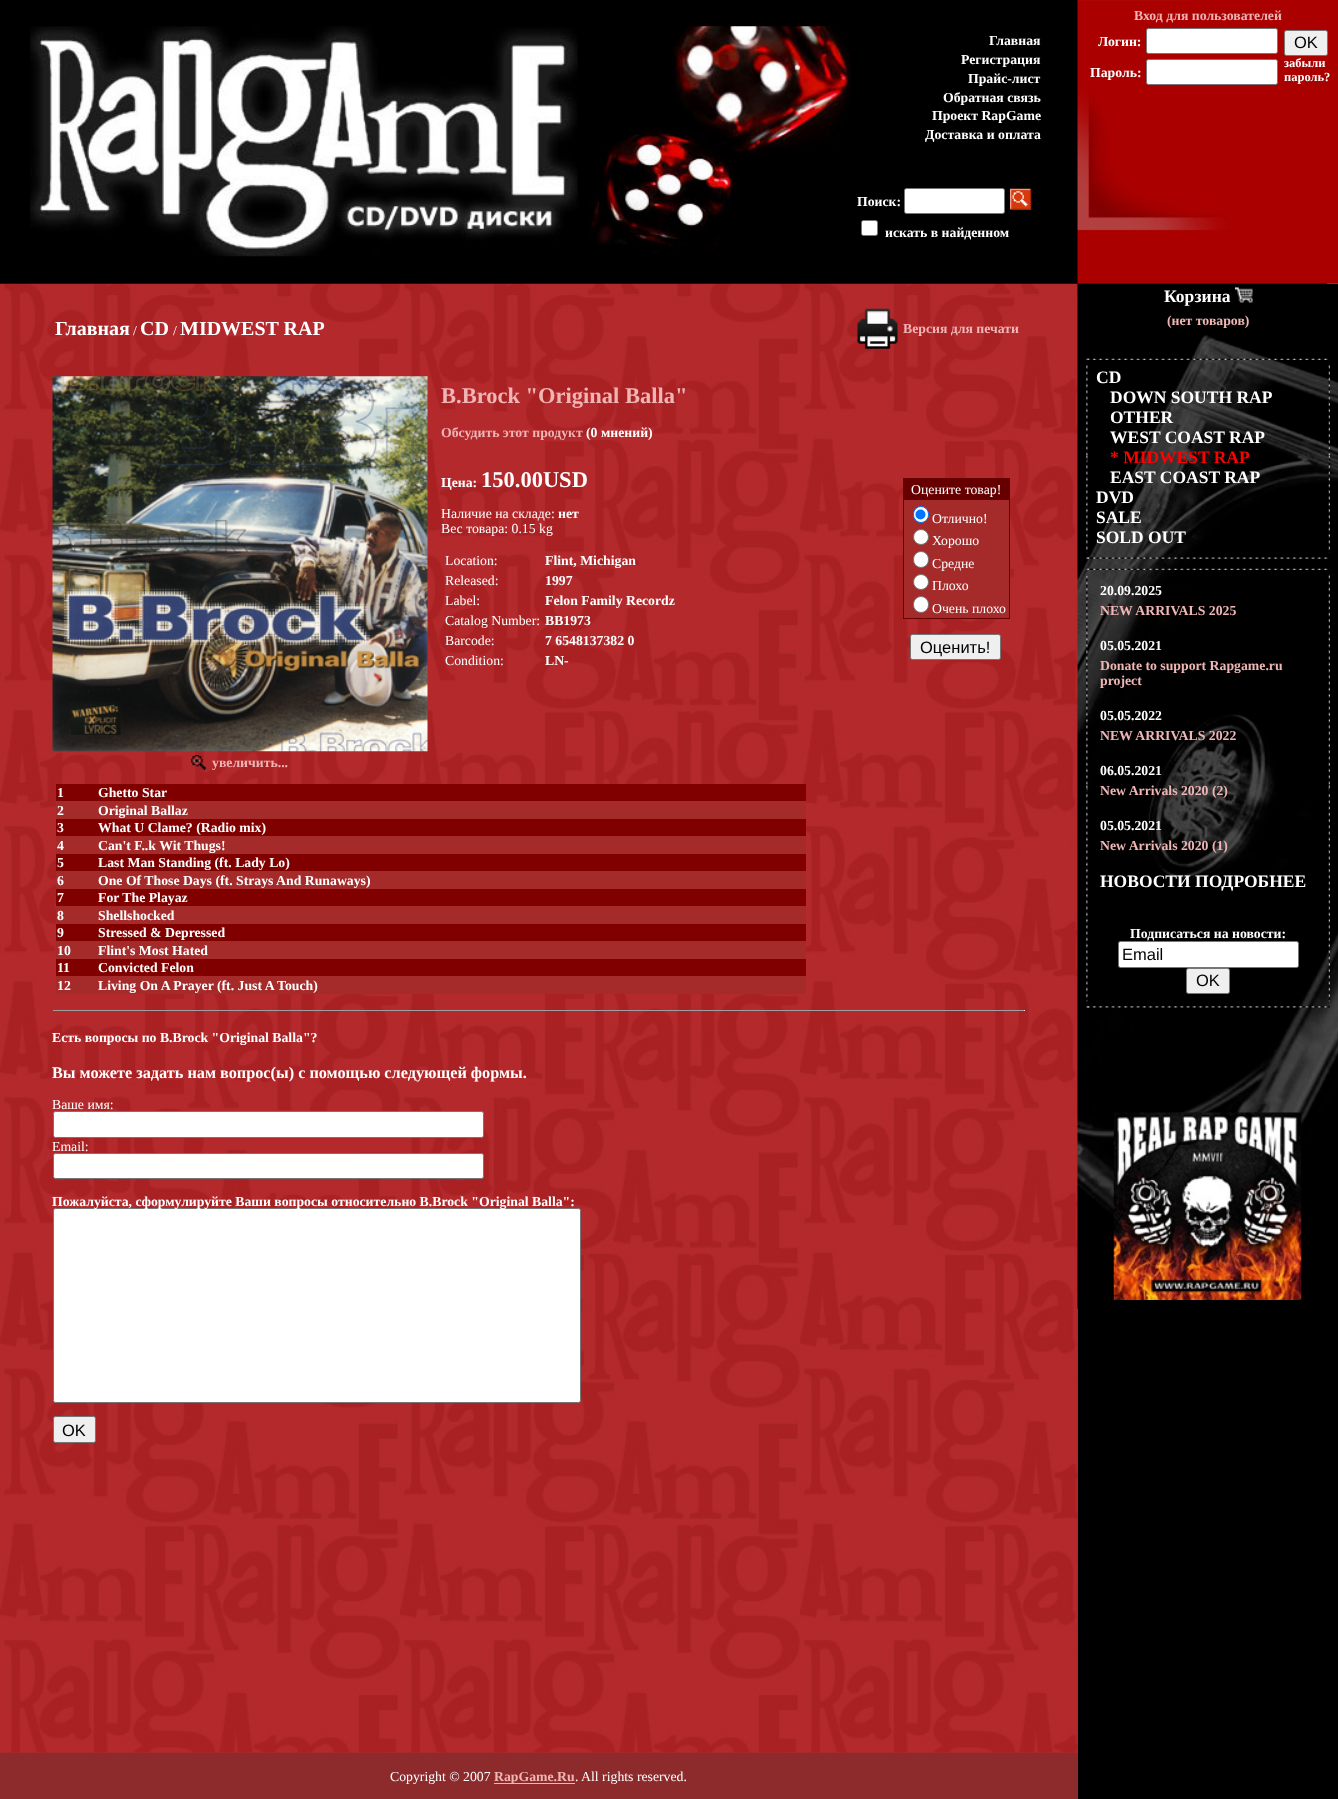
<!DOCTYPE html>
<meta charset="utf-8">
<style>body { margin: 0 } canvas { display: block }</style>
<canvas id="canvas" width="1338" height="1799"></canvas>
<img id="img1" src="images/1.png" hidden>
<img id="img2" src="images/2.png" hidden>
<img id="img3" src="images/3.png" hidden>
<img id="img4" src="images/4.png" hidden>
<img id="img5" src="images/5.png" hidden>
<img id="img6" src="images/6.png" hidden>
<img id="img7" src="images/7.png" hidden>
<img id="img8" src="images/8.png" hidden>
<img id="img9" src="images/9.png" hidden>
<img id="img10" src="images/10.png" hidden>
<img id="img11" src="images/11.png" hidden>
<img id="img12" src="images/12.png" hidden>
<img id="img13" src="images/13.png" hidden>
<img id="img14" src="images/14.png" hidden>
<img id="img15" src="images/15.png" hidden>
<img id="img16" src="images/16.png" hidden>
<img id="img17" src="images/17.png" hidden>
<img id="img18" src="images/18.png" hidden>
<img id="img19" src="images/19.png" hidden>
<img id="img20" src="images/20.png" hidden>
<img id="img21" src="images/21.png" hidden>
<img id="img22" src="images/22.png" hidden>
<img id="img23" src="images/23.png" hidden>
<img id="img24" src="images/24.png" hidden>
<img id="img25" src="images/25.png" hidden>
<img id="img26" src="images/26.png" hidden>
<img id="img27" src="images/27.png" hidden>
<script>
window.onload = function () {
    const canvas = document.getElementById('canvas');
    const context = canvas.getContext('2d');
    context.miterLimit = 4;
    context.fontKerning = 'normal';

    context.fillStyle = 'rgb(255, 255, 255)';
    context.fillRect(0, 0, 1338, 1799);
    context.drawImage(document.getElementById('img1'), 1078, 283, 249, 1);
    context.fillStyle = 'rgb(0, 0, 0)';
    context.fillRect(0, 0, 1078, 284);
    context.drawImage(document.getElementById('img2'), 30, 26, 821, 231);
    context.fillStyle = 'rgb(255, 255, 255)';
    context.beginPath();
    context.roundRect(904.5, 188.5, 100, 25, 2);
    context.fill();
    context.strokeStyle = 'rgb(118, 118, 118)';
    context.stroke();
    context.drawImage(document.getElementById('img3'), 1010, 188, 22, 22);
    context.beginPath();
    context.roundRect(861.5, 220.5, 16, 15, 2);
    context.fill();
    context.stroke();
    context.drawImage(document.getElementById('img4'), 1077, 0, 261, 284);
    context.beginPath();
    context.roundRect(1146.5, 28.5, 131, 25, 2);
    context.fill();
    context.stroke();
    context.beginPath();
    context.roundRect(1146.5, 59.5, 131, 25, 2);
    context.fill();
    context.stroke();
    context.fillStyle = 'rgb(239, 239, 239)';
    context.beginPath();
    context.roundRect(1284.5, 30.5, 43, 25, 2);
    context.fill();
    context.stroke();
    context.fillStyle = 'rgb(165, 42, 42)';
    context.fillRect(0, 284, 1078, 1469);
    context.drawImage(document.getElementById('img5'), 0, 283, 1078, 1470);
    context.drawImage(document.getElementById('img6'), 857, 308, 41, 41);
    context.fillStyle = 'rgb(102, 0, 0)';
    context.fillRect(903, 478, 107, 141);
    context.fillStyle = 'rgb(165, 42, 42)';
    context.fillRect(904, 500, 105, 118);
    context.fillStyle = 'rgb(255, 255, 255)';
    context.beginPath();
    context.roundRect(913.5, 506.5, 15, 16, 7.5);
    context.fill();
    context.strokeStyle = 'rgb(0, 117, 255)';
    context.stroke();
    context.fillStyle = 'rgb(0, 117, 255)';
    context.beginPath();
    context.arc(920.5, 514.5, 5, 0, 2 * Math.PI);
    context.fill();
    context.fillStyle = 'rgb(255, 255, 255)';
    context.beginPath();
    context.arc(921, 537, 7.5, 0, 2 * Math.PI);
    context.fill();
    context.strokeStyle = 'rgb(118, 118, 118)';
    context.stroke();
    context.beginPath();
    context.roundRect(913.5, 551.5, 15, 16, 7.5);
    context.fill();
    context.stroke();
    context.beginPath();
    context.arc(921, 582, 7.5, 0, 2 * Math.PI);
    context.fill();
    context.stroke();
    context.beginPath();
    context.roundRect(913.5, 596.5, 15, 16, 7.5);
    context.fill();
    context.stroke();
    context.fillStyle = 'rgb(239, 239, 239)';
    context.beginPath();
    context.roundRect(910.5, 634.5, 90, 25, 2);
    context.fill();
    context.stroke();
    context.drawImage(document.getElementById('img7'), 52, 376, 376, 376);
    context.drawImage(document.getElementById('img8'), 191, 755, 16, 15);
    context.fillStyle = 'rgb(128, 0, 0)';
    context.fillRect(56, 784, 750, 17);
    context.fillStyle = 'rgb(165, 42, 42)';
    context.fillRect(56, 801, 750, 18);
    context.fillStyle = 'rgb(128, 0, 0)';
    context.fillRect(56, 819, 750, 17);
    context.fillStyle = 'rgb(165, 42, 42)';
    context.fillRect(56, 836, 750, 18);
    context.fillStyle = 'rgb(128, 0, 0)';
    context.fillRect(56, 854, 750, 17);
    context.fillStyle = 'rgb(165, 42, 42)';
    context.fillRect(56, 871, 750, 18);
    context.fillStyle = 'rgb(128, 0, 0)';
    context.fillRect(56, 889, 750, 17);
    context.fillStyle = 'rgb(165, 42, 42)';
    context.fillRect(56, 906, 750, 18);
    context.fillStyle = 'rgb(128, 0, 0)';
    context.fillRect(56, 924, 750, 17);
    context.fillStyle = 'rgb(165, 42, 42)';
    context.fillRect(56, 941, 750, 18);
    context.fillStyle = 'rgb(128, 0, 0)';
    context.fillRect(56, 959, 750, 17);
    context.fillStyle = 'rgb(165, 42, 42)';
    context.fillRect(56, 976, 750, 18);
    context.fillStyle = 'rgb(159, 159, 159)';
    context.fillRect(53, 1010, 972, 1);
    context.fillStyle = 'rgb(238, 238, 238)';
    context.fillRect(1024, 1010, 1, 1);
    context.fillStyle = 'rgb(255, 255, 255)';
    context.beginPath();
    context.roundRect(53.5, 1111.5, 430, 26, 2);
    context.fill();
    context.stroke();
    context.beginPath();
    context.roundRect(53.5, 1153.5, 430, 25, 2);
    context.fill();
    context.stroke();
    context.beginPath();
    context.roundRect(53.5, 1208.5, 527, 194, 2);
    context.fill();
    context.stroke();
    context.fillStyle = 'rgb(239, 239, 239)';
    context.beginPath();
    context.roundRect(53.5, 1416.5, 42, 26, 2);
    context.fill();
    context.stroke();
    context.fillStyle = 'rgb(0, 0, 0)';
    context.fillRect(1078, 1308, 260, 491);
    context.drawImage(document.getElementById('img9'), 1077, 283, 261, 1026);
    context.drawImage(document.getElementById('img10'), 1235, 287, 18, 16);
    context.drawImage(document.getElementById('img11'), 1086, 358, 244, 2);
    context.drawImage(document.getElementById('img12'), 1086, 358, 7, 2);
    context.drawImage(document.getElementById('img13'), 1086, 365, 2, 188);
    context.drawImage(document.getElementById('img14'), 1086, 455, 2, 7);
    context.drawImage(document.getElementById('img15'), 1328, 365, 2, 188);
    context.drawImage(document.getElementById('img16'), 1328, 455, 2, 7);
    context.drawImage(document.getElementById('img17'), 1086, 557, 244, 2);
    context.drawImage(document.getElementById('img18'), 1086, 557, 7, 2);
    context.drawImage(document.getElementById('img19'), 1086, 568, 244, 2);
    context.drawImage(document.getElementById('img20'), 1086, 568, 7, 2);
    context.drawImage(document.getElementById('img21'), 1086, 575, 2, 427);
    context.drawImage(document.getElementById('img22'), 1086, 785, 2, 6);
    context.fillStyle = 'rgb(255, 255, 255)';
    context.beginPath();
    context.roundRect(1118.5, 941.5, 180, 26, 2);
    context.fill();
    context.stroke();
    context.fillStyle = 'rgb(239, 239, 239)';
    context.beginPath();
    context.roundRect(1186.5, 968.5, 43, 25, 2);
    context.fill();
    context.stroke();
    context.drawImage(document.getElementById('img23'), 1328, 575, 2, 427);
    context.drawImage(document.getElementById('img24'), 1328, 785, 2, 7);
    context.drawImage(document.getElementById('img25'), 1086, 1006, 244, 2);
    context.drawImage(document.getElementById('img26'), 1086, 1006, 7, 2);
    context.drawImage(document.getElementById('img27'), 1113, 1112, 189, 188);
    context.fillStyle = 'rgb(140, 42, 44)';
    context.fillRect(0, 1753, 1078, 46);
    context.fillStyle = 'rgb(240, 181, 181)';
    context.fillRect(494, 1783, 81, 1);
    context.font = 'bold 13.75px Liberation Serif';
    context.fillStyle = 'rgb(255, 255, 255)';
    context.fillText('Главная', 989, 45);
    context.fillText('Регистрация', 961, 64);
    context.fillText('Прайс-лист', 968, 83);
    context.fillText('Обратная связь', 943, 102);
    context.fillText('Проект RapGame', 932, 120);
    context.fillText('Доставка и оплата', 925, 139);
    context.fillText('Поиск:', 857, 206);
    context.fillText('искать в найденном', 885, 237);
    context.fillStyle = 'rgb(240, 181, 181)';
    context.fillText('Вход для пользователей', 1134, 20);
    context.fillStyle = 'rgb(255, 255, 255)';
    context.fillText('Логин:', 1098, 46);
    context.fillText('Пароль:', 1090, 77);
    context.font = '16.5px Liberation Sans';
    context.fillStyle = 'rgb(0, 0, 0)';
    context.fillText('OK', 1294, 48);
    context.font = 'bold 12.5px Liberation Serif';
    context.fillStyle = 'rgb(255, 255, 255)';
    context.fillText('забыли', 1284, 67);
    context.fillText('пароль?', 1284, 81);
    context.font = 'bold 20px Liberation Serif';
    context.fillText('Главная', 55, 335);
    context.font = '13.75px Liberation Serif';
    context.fillText('/', 133, 335);
    context.font = 'bold 20px Liberation Serif';
    context.fillText('CD', 140, 335);
    context.font = '13.75px Liberation Serif';
    context.fillText('/', 173, 335);
    context.font = 'bold 20px Liberation Serif';
    context.fillText('MIDWEST RAP', 180, 335);
    context.font = 'bold 13.75px Liberation Serif';
    context.fillStyle = 'rgb(240, 181, 181)';
    context.fillText('Версия для печати', 903, 333);
    context.font = 'bold 22.5px Liberation Serif';
    context.fillText('B.Brock "Original Balla"', 441, 403);
    context.font = 'bold 13.75px Liberation Serif';
    context.fillText('Обсудить этот продукт', 441, 437);
    context.fillStyle = 'rgb(255, 255, 255)';
    context.fillText('(0 мнений)', 586, 437);
    context.fillText('Цена:', 441, 487);
    context.font = 'bold 22.5px Liberation Serif';
    context.fillText('150.00USD', 481, 487);
    context.font = '13.75px Liberation Serif';
    context.fillText('Оцените товар!', 911, 494);
    context.fillText('Отлично!', 932, 523);
    context.fillText('Хорошо', 932, 545);
    context.fillText('Средне', 932, 568);
    context.fillText('Плохо', 932, 590);
    context.fillText('Очень плохо', 932, 613);
    context.font = '16.5px Liberation Sans';
    context.fillStyle = 'rgb(0, 0, 0)';
    context.fillText('Оценить!', 920, 653);
    context.font = '13.75px Liberation Serif';
    context.fillStyle = 'rgb(255, 255, 255)';
    context.fillText('Наличие на складе:', 441, 518);
    context.font = 'bold 13.75px Liberation Serif';
    context.fillText('нет', 558, 518);
    context.font = '13.75px Liberation Serif';
    context.fillText('Вес товара: 0.15 kg', 441, 533);
    context.fillText('Location:', 445, 565);
    context.font = 'bold 13.75px Liberation Serif';
    context.fillText('Flint, Michigan', 545, 565);
    context.font = '13.75px Liberation Serif';
    context.fillText('Released:', 445, 585);
    context.font = 'bold 13.75px Liberation Serif';
    context.fillText('1997', 545, 585);
    context.font = '13.75px Liberation Serif';
    context.fillText('Label:', 445, 605);
    context.font = 'bold 13.75px Liberation Serif';
    context.fillText('Felon Family Recordz', 545, 605);
    context.font = '13.75px Liberation Serif';
    context.fillText('Catalog Number:', 445, 625);
    context.font = 'bold 13.75px Liberation Serif';
    context.fillText('BB1973', 545, 625);
    context.font = '13.75px Liberation Serif';
    context.fillText('Barcode:', 445, 645);
    context.font = 'bold 13.75px Liberation Serif';
    context.fillText('7 6548137382 0', 545, 645);
    context.font = '13.75px Liberation Serif';
    context.fillText('Condition:', 445, 665);
    context.font = 'bold 13.75px Liberation Serif';
    context.fillText('LN-', 545, 665);
    context.fillStyle = 'rgb(240, 181, 181)';
    context.fillText('увеличить...', 212, 767);
    context.fillStyle = 'rgb(255, 255, 255)';
    context.fillText('1', 57, 797);
    context.fillText('Ghetto Star', 98, 797);
    context.fillText('2', 57, 815);
    context.fillText('Original Ballaz', 98, 815);
    context.fillText('3', 57, 832);
    context.fillText('What U Clame? (Radio mix)', 98, 832);
    context.fillText('4', 57, 850);
    context.fillText('Can\'t F..k Wit Thugs!', 98, 850);
    context.fillText('5', 57, 867);
    context.fillText('Last Man Standing (ft. Lady Lo)', 98, 867);
    context.fillText('6', 57, 885);
    context.fillText('One Of Those Days (ft. Strays And Runaways)', 98, 885);
    context.fillText('7', 57, 902);
    context.fillText('For The Playaz', 98, 902);
    context.fillText('8', 57, 920);
    context.fillText('Shellshocked', 98, 920);
    context.fillText('9', 57, 937);
    context.fillText('Stressed & Depressed', 98, 937);
    context.fillText('10', 57, 955);
    context.fillText('Flint\'s Most Hated', 98, 955);
    context.fillText('11', 57, 972);
    context.fillText('Convicted Felon', 98, 972);
    context.fillText('12', 57, 990);
    context.fillText('Living On A Prayer (ft. Just A Touch)', 98, 990);
    context.fillText('Есть вопросы по B.Brock "Original Balla"?', 52, 1042);
    context.font = 'bold 16.25px Liberation Serif';
    context.fillText('Вы можете задать нам вопрос(ы) с помощью следующей формы.', 52, 1078);
    context.font = '13.75px Liberation Serif';
    context.fillText('Ваше имя:', 52, 1109);
    context.fillText('Email:', 52, 1151);
    context.font = 'bold 13.75px Liberation Serif';
    context.fillText('Пожалуйста, сформулируйте Ваши вопросы относительно B.Brock "Original Balla":', 52, 1206);
    context.font = '16.5px Liberation Sans';
    context.fillStyle = 'rgb(0, 0, 0)';
    context.fillText('OK', 62, 1436);
    context.font = 'bold 17.5px Liberation Serif';
    context.fillStyle = 'rgb(255, 255, 255)';
    context.fillText('Корзина', 1164, 302);
    context.font = 'bold 13.75px Liberation Serif';
    context.fillStyle = 'rgb(240, 181, 181)';
    context.fillText('(нет товаров)', 1167, 325);
    context.font = 'bold 17.5px Liberation Serif';
    context.fillStyle = 'rgb(255, 255, 255)';
    context.fillText('CD', 1096, 383);
    context.fillText('DOWN SOUTH RAP', 1110, 403);
    context.fillText('OTHER', 1110, 423);
    context.fillText('WEST COAST RAP', 1110, 443);
    context.fillStyle = 'rgb(255, 0, 0)';
    context.fillText('* MIDWEST RAP', 1110, 463);
    context.fillStyle = 'rgb(255, 255, 255)';
    context.fillText('EAST COAST RAP', 1110, 483);
    context.fillText('DVD', 1096, 503);
    context.fillText('SALE', 1096, 523);
    context.fillText('SOLD OUT', 1096, 543);
    context.font = 'bold 13.75px Liberation Serif';
    context.fillText('20.09.2025', 1100, 595);
    context.fillStyle = 'rgb(240, 181, 181)';
    context.fillText('NEW ARRIVALS 2025', 1100, 615);
    context.fillStyle = 'rgb(255, 255, 255)';
    context.fillText('05.05.2021', 1100, 650);
    context.fillStyle = 'rgb(240, 181, 181)';
    context.fillText('Donate to support Rapgame.ru', 1100, 670);
    context.fillText('project', 1100, 685);
    context.fillStyle = 'rgb(255, 255, 255)';
    context.fillText('05.05.2022', 1100, 720);
    context.fillStyle = 'rgb(240, 181, 181)';
    context.fillText('NEW ARRIVALS 2022', 1100, 740);
    context.fillStyle = 'rgb(255, 255, 255)';
    context.fillText('06.05.2021', 1100, 775);
    context.fillStyle = 'rgb(240, 181, 181)';
    context.fillText('New Arrivals 2020 (2)', 1100, 795);
    context.fillStyle = 'rgb(255, 255, 255)';
    context.fillText('05.05.2021', 1100, 830);
    context.fillStyle = 'rgb(240, 181, 181)';
    context.fillText('New Arrivals 2020 (1)', 1100, 850);
    context.font = 'bold 17.5px Liberation Serif';
    context.fillStyle = 'rgb(255, 255, 255)';
    context.fillText('НОВОСТИ ПОДРОБНЕЕ', 1100, 887);
    context.font = 'bold 13.75px Liberation Serif';
    context.fillText('Подписаться на новости:', 1130, 938);
    context.font = '16.5px Liberation Sans';
    context.fillStyle = 'rgb(0, 0, 0)';
    context.fillText('Email', 1122, 960);
    context.fillText('OK', 1196, 986);
    context.font = '13.75px Liberation Serif';
    context.fillStyle = 'rgb(255, 255, 255)';
    context.fillText('Copyright © 2007', 390, 1781);
    context.font = 'bold 13.75px Liberation Serif';
    context.fillStyle = 'rgb(240, 181, 181)';
    context.fillText('RapGame.Ru', 494, 1781);
    context.font = '13.75px Liberation Serif';
    context.fillStyle = 'rgb(255, 255, 255)';
    context.fillText('. All rights reserved.', 575, 1781);
};
</script>
